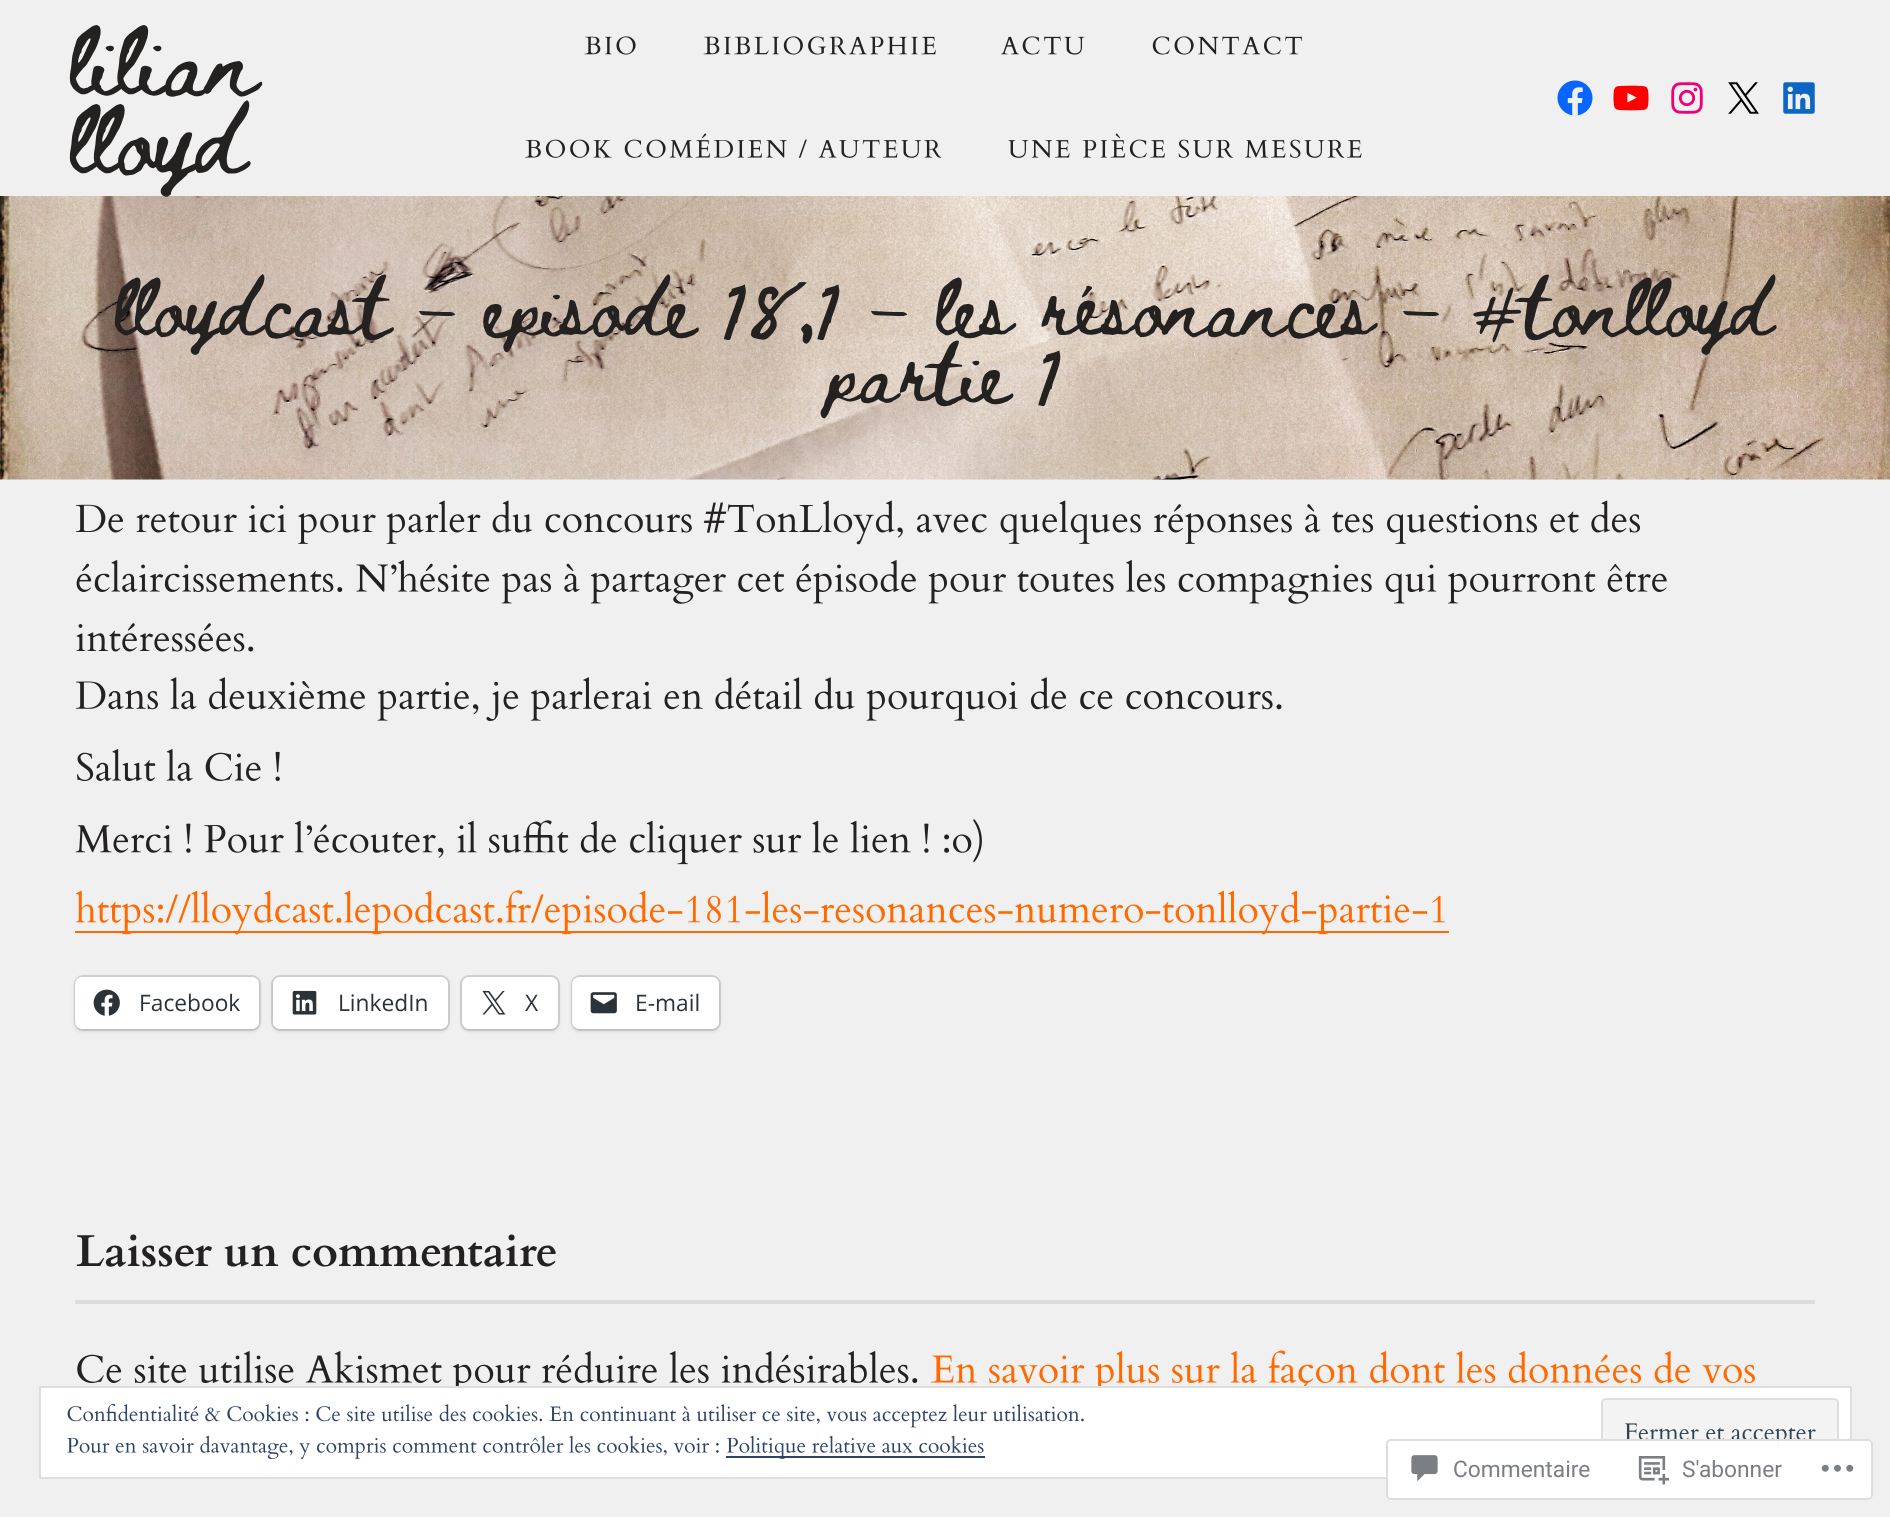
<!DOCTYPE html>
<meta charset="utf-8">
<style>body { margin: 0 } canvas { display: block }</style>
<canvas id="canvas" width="1890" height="1517"></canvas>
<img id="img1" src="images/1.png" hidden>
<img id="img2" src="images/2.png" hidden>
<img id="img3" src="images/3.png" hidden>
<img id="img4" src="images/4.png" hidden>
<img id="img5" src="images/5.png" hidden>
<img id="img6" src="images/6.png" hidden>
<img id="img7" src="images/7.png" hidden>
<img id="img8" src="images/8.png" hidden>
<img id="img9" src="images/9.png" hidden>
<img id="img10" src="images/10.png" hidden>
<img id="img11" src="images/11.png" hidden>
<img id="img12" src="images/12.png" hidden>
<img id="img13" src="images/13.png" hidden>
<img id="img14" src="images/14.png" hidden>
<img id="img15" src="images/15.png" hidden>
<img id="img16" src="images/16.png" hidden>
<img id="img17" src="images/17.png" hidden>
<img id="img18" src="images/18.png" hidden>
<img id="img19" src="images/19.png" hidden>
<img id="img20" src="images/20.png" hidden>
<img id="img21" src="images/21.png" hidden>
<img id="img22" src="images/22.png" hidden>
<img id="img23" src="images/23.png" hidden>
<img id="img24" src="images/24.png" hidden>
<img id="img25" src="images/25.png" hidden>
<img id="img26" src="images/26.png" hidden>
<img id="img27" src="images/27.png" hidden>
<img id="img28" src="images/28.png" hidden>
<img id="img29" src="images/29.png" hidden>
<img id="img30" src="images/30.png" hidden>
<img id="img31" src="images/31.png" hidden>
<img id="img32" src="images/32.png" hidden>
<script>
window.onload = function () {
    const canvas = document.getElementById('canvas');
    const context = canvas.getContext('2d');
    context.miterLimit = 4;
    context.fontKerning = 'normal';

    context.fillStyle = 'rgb(240, 240, 240)';
    context.fillRect(0, 0, 1890, 1517);
    context.drawImage(document.getElementById('img1'), 584, 36, 52, 19);
    context.drawImage(document.getElementById('img2'), 703, 36, 233, 19);
    context.drawImage(document.getElementById('img3'), 1001, 36, 84, 19);
    context.drawImage(document.getElementById('img4'), 1152, 36, 151, 19);
    context.drawImage(document.getElementById('img5'), 525, 133, 417, 25);
    context.drawImage(document.getElementById('img6'), 1008, 133, 354, 25);
    context.drawImage(document.getElementById('img7'), 1557, 80, 36, 36);
    context.drawImage(document.getElementById('img8'), 1613, 85, 36, 26);
    context.drawImage(document.getElementById('img9'), 1671, 82, 32, 32);
    context.drawImage(document.getElementById('img10'), 1728, 82, 31, 32);
    context.drawImage(document.getElementById('img11'), 1783, 82, 32, 32);
    context.drawImage(document.getElementById('img12'), 0, 196, 1890, 284);
    context.drawImage(document.getElementById('img13'), 76, 500, 1565, 45);
    context.drawImage(document.getElementById('img14'), 76, 560, 1591, 44);
    context.drawImage(document.getElementById('img15'), 76, 623, 178, 29);
    context.drawImage(document.getElementById('img16'), 76, 677, 1206, 44);
    context.drawImage(document.getElementById('img17'), 77, 749, 203, 32);
    context.drawImage(document.getElementById('img18'), 75, 819, 907, 46);
    context.fillStyle = 'rgb(255, 105, 0)';
    context.fillRect(75, 931, 1374, 2);
    context.drawImage(document.getElementById('img19'), 75, 890, 1370, 45);
    context.beginPath();
    context.roundRect(75, 976, 185, 54, 8);
    context.strokeStyle = 'rgb(211, 211, 211)';
    context.lineWidth = 2;
    context.stroke();
    context.fillStyle = 'rgba(0, 0, 0, 0.12)';
    context.filter = 'blur(2px)';
    context.beginPath();
    context.roundRect(75, 978, 184, 53, 7);
    context.fill();
    context.filter = 'none';
    context.fillStyle = 'rgb(255, 255, 255)';
    context.beginPath();
    context.roundRect(75, 977, 184, 52, 7);
    context.fill();
    context.drawImage(document.getElementById('img20'), 93, 989, 27, 27);
    context.beginPath();
    context.roundRect(272, 976, 177, 54, 8);
    context.stroke();
    context.fillStyle = 'rgba(0, 0, 0, 0.12)';
    context.filter = 'blur(2px)';
    context.beginPath();
    context.roundRect(273, 978, 175, 53, 7);
    context.fill();
    context.filter = 'none';
    context.fillStyle = 'rgb(255, 255, 255)';
    context.beginPath();
    context.roundRect(273, 977, 175, 52, 7);
    context.fill();
    context.drawImage(document.getElementById('img21'), 292, 990, 25, 25);
    context.beginPath();
    context.roundRect(461, 976, 98, 54, 8);
    context.stroke();
    context.fillStyle = 'rgba(0, 0, 0, 0.12)';
    context.filter = 'blur(2px)';
    context.beginPath();
    context.roundRect(462, 978, 96, 53, 7);
    context.fill();
    context.filter = 'none';
    context.fillStyle = 'rgb(255, 255, 255)';
    context.beginPath();
    context.roundRect(462, 977, 96, 52, 7);
    context.fill();
    context.drawImage(document.getElementById('img22'), 482, 990, 24, 25);
    context.beginPath();
    context.roundRect(572, 976, 148, 54, 8);
    context.stroke();
    context.fillStyle = 'rgba(0, 0, 0, 0.12)';
    context.filter = 'blur(2px)';
    context.beginPath();
    context.roundRect(572, 978, 147, 53, 7);
    context.fill();
    context.filter = 'none';
    context.fillStyle = 'rgb(255, 255, 255)';
    context.beginPath();
    context.roundRect(572, 977, 147, 52, 7);
    context.fill();
    context.drawImage(document.getElementById('img23'), 590, 992, 27, 22);
    context.fillStyle = 'rgb(220, 220, 222)';
    context.fillRect(75, 1300, 1740, 4);
    context.drawImage(document.getElementById('img24'), 77, 1351, 841, 35);
    context.drawImage(document.getElementById('img25'), 931, 1350, 824, 36);
    context.fillStyle = 'rgb(255, 255, 255)';
    context.beginPath();
    context.rect(40, 1387, 1811, 91);
    context.fill();
    context.strokeStyle = 'rgb(222, 222, 222)';
    context.stroke();
    context.drawImage(document.getElementById('img26'), 67, 1403, 1017, 25);
    context.fillStyle = 'rgb(243, 243, 243)';
    context.beginPath();
    context.roundRect(1602, 1399, 236, 67, 4);
    context.fill();
    context.stroke();
    context.drawImage(document.getElementById('img27'), 1625, 1423, 191, 25);
    context.drawImage(document.getElementById('img28'), 67, 1435, 652, 25);
    context.fillStyle = 'rgb(46, 68, 103)';
    context.fillRect(726, 1456, 259, 2);
    context.drawImage(document.getElementById('img29'), 726, 1435, 258, 24);
    context.fillStyle = 'rgba(255, 255, 255, 0.98)';
    context.beginPath();
    context.roundRect(1386, 1439, 487, 61, 5);
    context.fill();
    context.beginPath();
    context.roundRect(1387, 1440, 485, 59, 4);
    context.strokeStyle = 'rgba(220, 220, 222, 0.98)';
    context.stroke();
    context.drawImage(document.getElementById('img30'), 1411, 1455, 27, 27);
    context.drawImage(document.getElementById('img31'), 1638, 1456, 32, 29);
    context.drawImage(document.getElementById('img32'), 1821, 1464, 33, 8);
    context.font = '70.5px Beth Ellen';
    context.fillStyle = 'rgb(36, 33, 33)';
    context.fillText('lilian', 70, 94);
    context.fillText('lloyd', 70, 173);
    context.wordSpacing = '-0.25px';
    context.font = '58.8px Beth Ellen';
    context.fillText('lloydcast – episode 18,1 – les résonances – #tonlloyd', 115, 335);
    context.wordSpacing = '0px';
    context.fillText('partie 1', 828, 401);
    context.font = '22.75px Open Sans';
    context.fillStyle = 'rgb(44, 51, 56)';
    context.fillText('Facebook', 139, 1011);
    context.fillText('LinkedIn', 338, 1011);
    context.fillText('X', 525, 1011);
    context.fillText('E-mail', 635, 1011);
    context.font = 'bold 44.6px Cardo';
    context.fillStyle = 'rgb(36, 33, 33)';
    context.fillText('Laisser un commentaire', 76, 1266);
    context.font = '22.75px Roboto';
    context.fillStyle = 'rgb(123, 127, 132)';
    context.fillText('Commentaire', 1453, 1477);
    context.fillText('S\'abonner', 1682, 1477);
};
</script>
